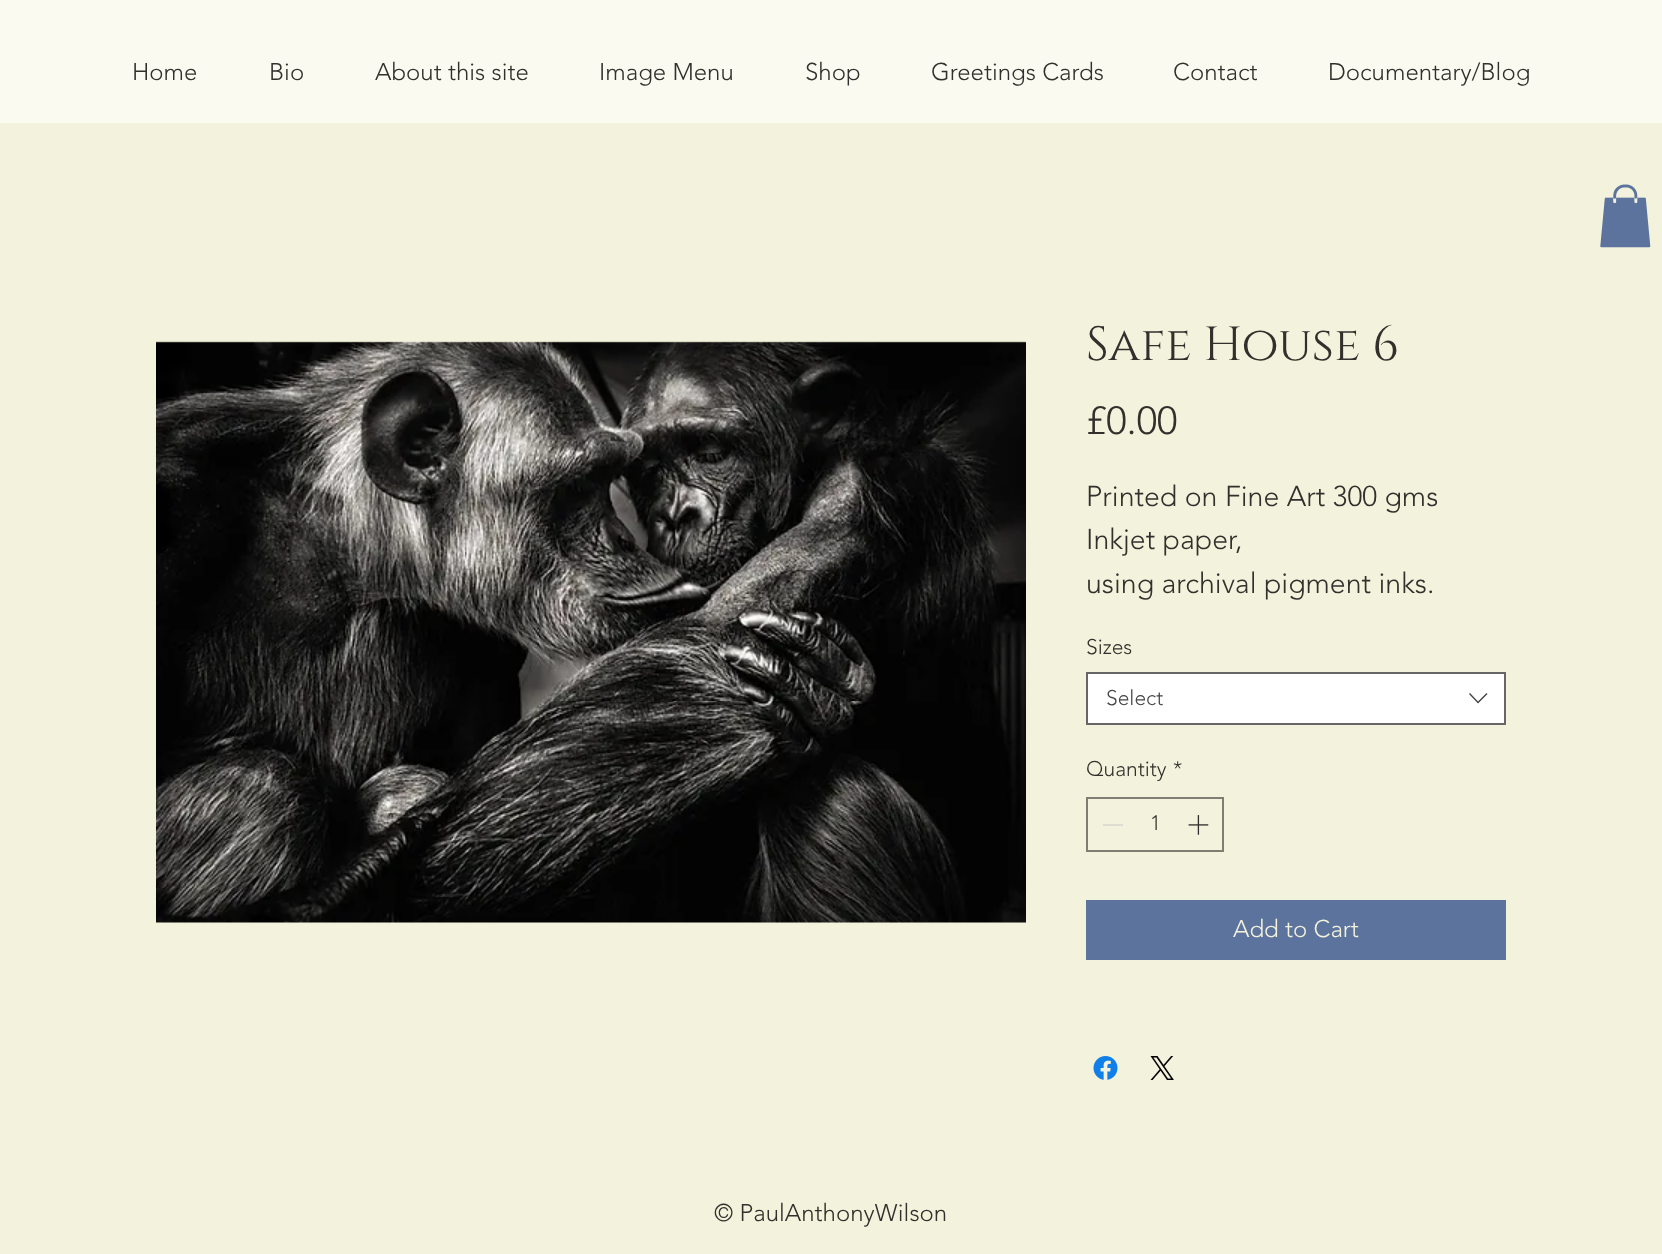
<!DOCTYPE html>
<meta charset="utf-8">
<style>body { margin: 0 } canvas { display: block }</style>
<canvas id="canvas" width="1662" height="1254"></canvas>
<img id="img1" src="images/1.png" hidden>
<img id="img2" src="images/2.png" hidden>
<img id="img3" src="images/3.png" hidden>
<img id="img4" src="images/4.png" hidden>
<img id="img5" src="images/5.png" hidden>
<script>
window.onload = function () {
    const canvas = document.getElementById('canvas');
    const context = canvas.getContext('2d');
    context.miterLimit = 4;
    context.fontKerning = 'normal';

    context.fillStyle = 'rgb(243, 242, 220)';
    context.fillRect(0, 0, 1662, 1254);
    context.fillStyle = 'rgb(250, 250, 241)';
    context.fillRect(0, 0, 1662, 123);
    context.drawImage(document.getElementById('img1'), 1600, 184, 51, 64);
    context.drawImage(document.getElementById('img2'), 156, 341, 870, 582);
    context.fillStyle = 'rgb(255, 255, 255)';
    context.beginPath();
    context.rect(1087, 673, 418, 51);
    context.fill();
    context.strokeStyle = 'rgb(102, 102, 102)';
    context.lineWidth = 2;
    context.stroke();
    context.fillStyle = 'rgb(68, 68, 68)';
    context.beginPath();
    context.moveTo(1486.5, 693);
    context.lineTo(1487.5, 694);
    context.lineTo(1478, 703.5);
    context.lineTo(1469, 694);
    context.lineTo(1470, 693);
    context.lineTo(1478, 701.5);
    context.closePath();
    context.fill('evenodd');
    context.strokeStyle = 'rgb(127, 126, 114)';
    context.strokeRect(1087, 798, 136, 53);
    context.fillStyle = 'rgb(221, 221, 210)';
    context.fillRect(1103, 824, 20, 2);
    context.drawImage(document.getElementById('img3'), 1188, 815, 21, 20);
    context.fillStyle = 'rgb(92, 115, 157)';
    context.fillRect(1086, 900, 420, 60);
    context.drawImage(document.getElementById('img4'), 1093, 1056, 25, 24);
    context.drawImage(document.getElementById('img5'), 1150, 1056, 24, 24);
    context.font = '300 24px "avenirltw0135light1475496"';
    context.fillStyle = 'rgb(49, 48, 44)';
    context.fillText('Home', 132, 80);
    context.fillText('Bio', 269, 80);
    context.fillText('About this site', 375, 80);
    context.fillText('Image Menu', 599, 80);
    context.fillText('Shop', 805, 80);
    context.fillText('Greetings Cards', 931, 80);
    context.fillText('Contact', 1173, 80);
    context.fillText('Documentary/Blog', 1328, 80);
    context.font = '48px Cinzel';
    context.fillText('Safe House 6', 1086, 360);
    context.font = '300 39px "avenirltw0135light1475496"';
    context.fillText('£0.00', 1086, 434);
    context.font = '300 28.5px "avenirltw0135light1475496"';
    context.fillText('Printed on Fine Art 300 gms', 1086, 506);
    context.fillText('Inkjet paper,', 1086, 549);
    context.fillText('using archival pigment inks.', 1086, 593);
    context.font = '300 21px "avenirltw0135light1475496"';
    context.fillText('Sizes', 1086, 654);
    context.fillStyle = 'rgb(68, 68, 68)';
    context.fillText('Select', 1106, 705);
    context.fillStyle = 'rgb(49, 48, 44)';
    context.fillText('Quantity', 1086, 776);
    context.fillText('*', 1173, 776);
    context.fillText('1', 1150, 830);
    context.font = '300 24px "avenirltw0135light1475496"';
    context.fillStyle = 'rgb(243, 242, 220)';
    context.fillText('Add to Cart', 1233, 937);
    context.fillStyle = 'rgb(49, 48, 44)';
    context.fillText('© PaulAnthonyWilson', 714, 1221);
};
</script>
